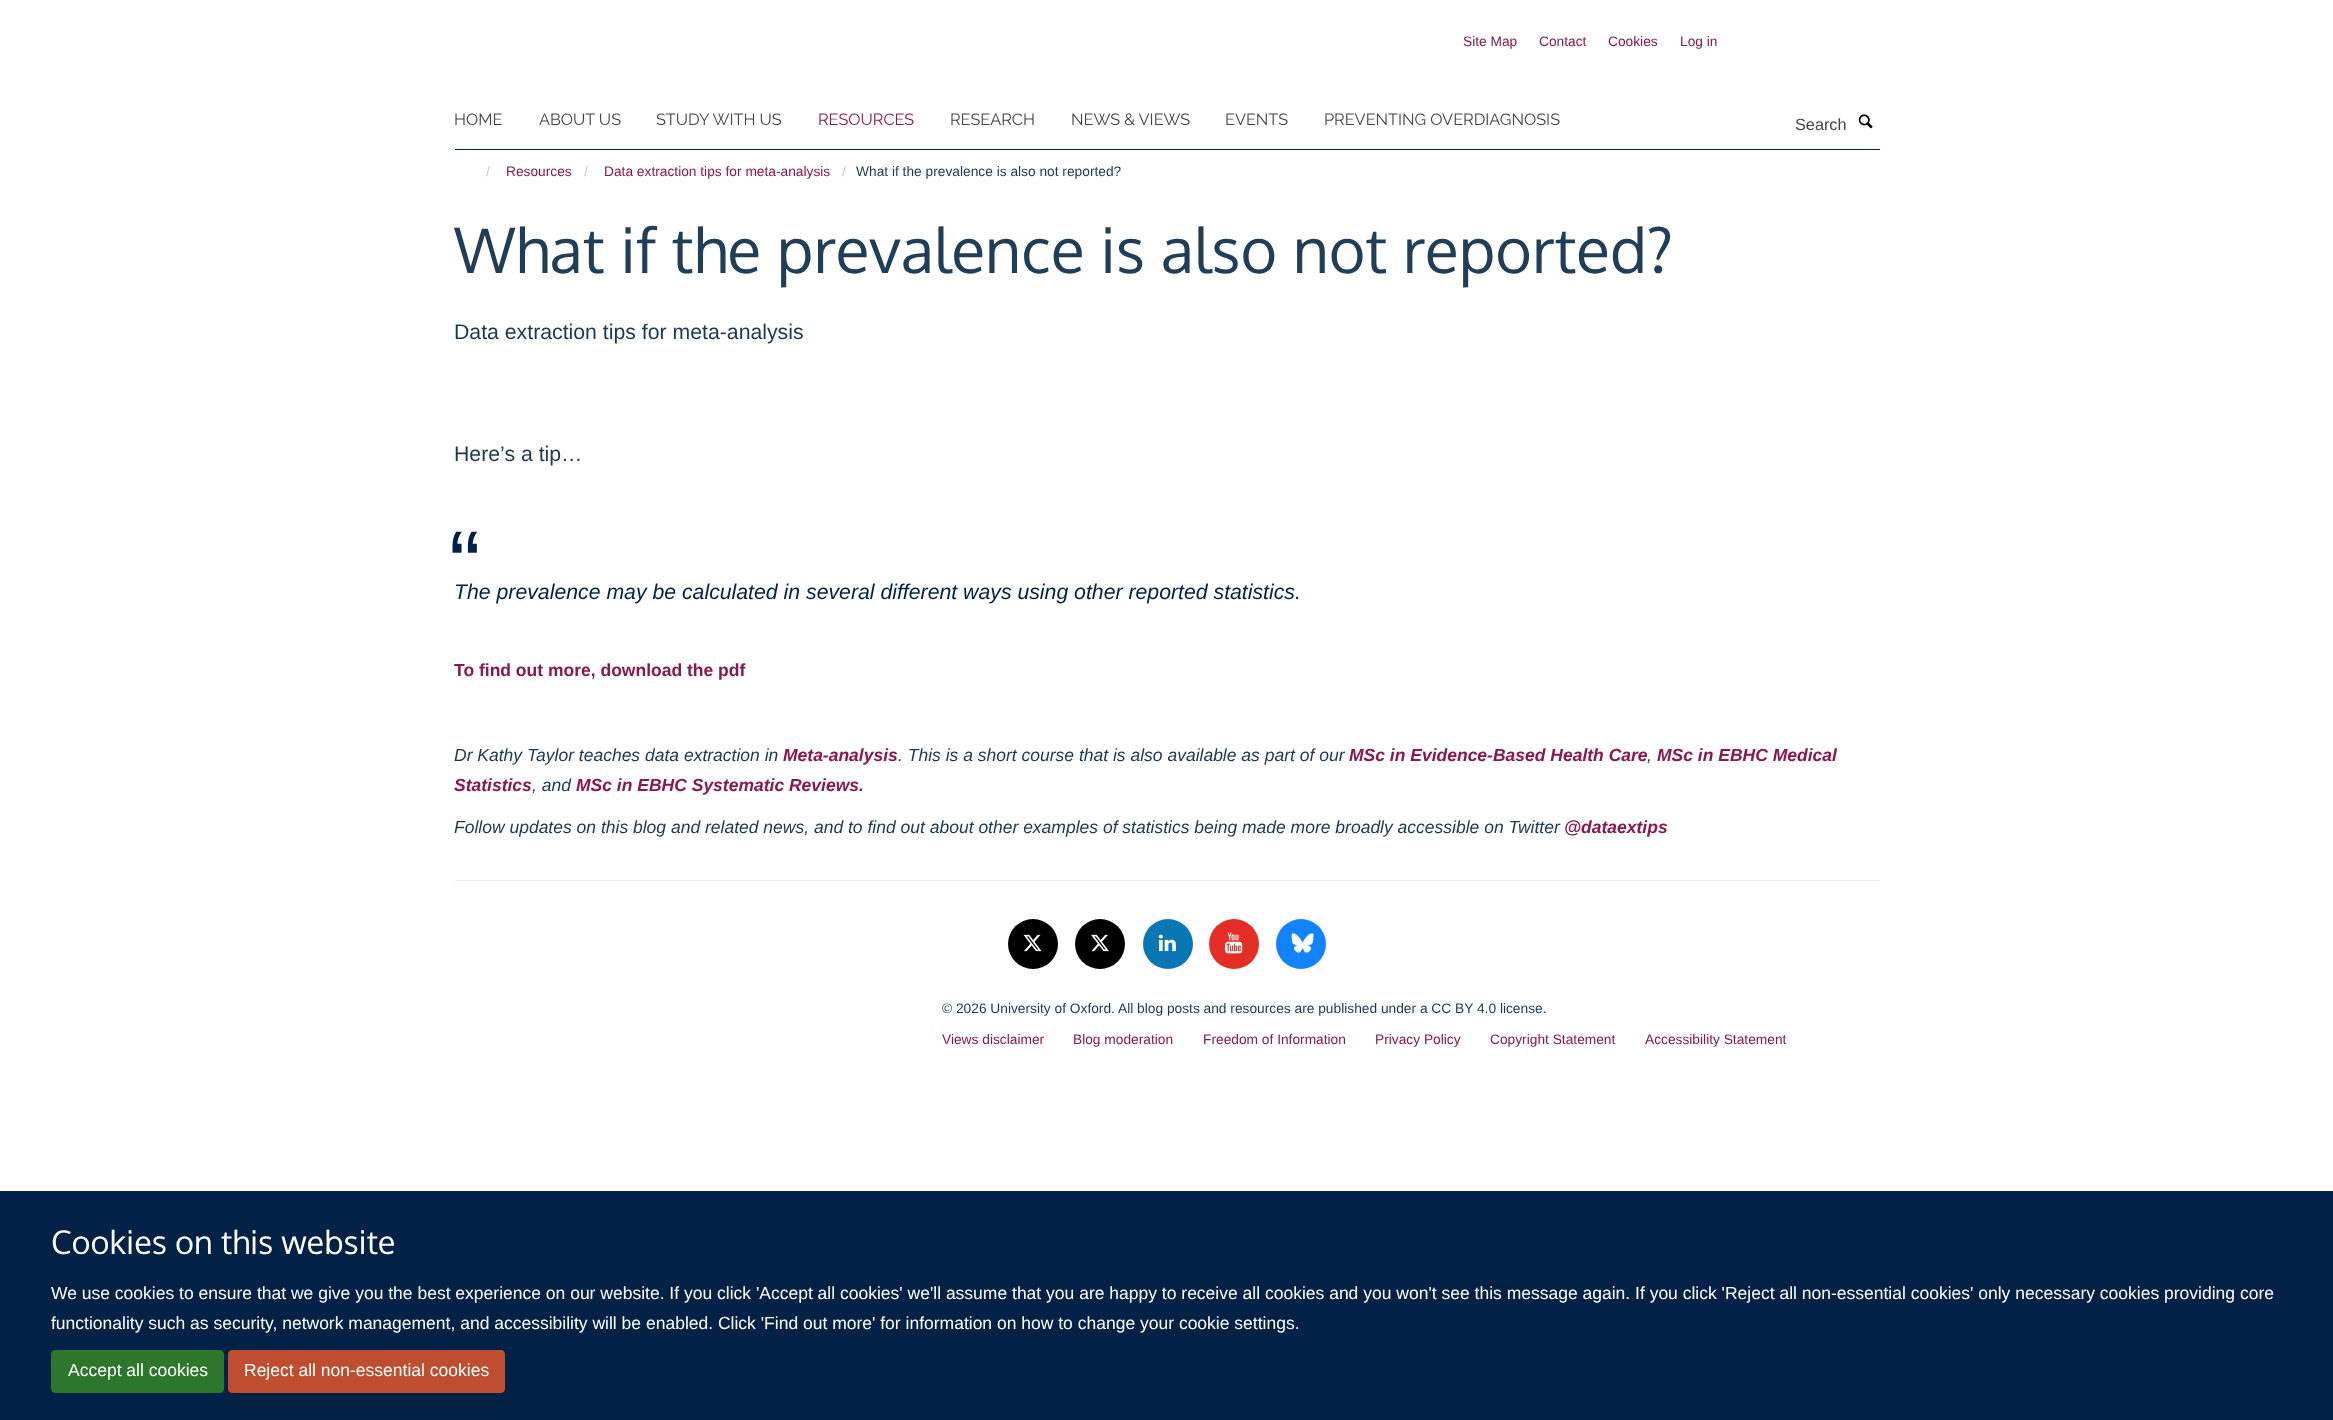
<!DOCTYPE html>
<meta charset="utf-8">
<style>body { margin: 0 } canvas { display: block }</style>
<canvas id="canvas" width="2333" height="1420"></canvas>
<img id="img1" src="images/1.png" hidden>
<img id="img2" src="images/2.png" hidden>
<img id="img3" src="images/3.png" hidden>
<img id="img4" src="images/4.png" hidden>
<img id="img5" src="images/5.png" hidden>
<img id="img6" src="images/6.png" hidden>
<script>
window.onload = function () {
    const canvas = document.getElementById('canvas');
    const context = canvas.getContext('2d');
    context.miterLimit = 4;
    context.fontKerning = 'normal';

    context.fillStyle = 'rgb(255, 255, 255)';
    context.fillRect(0, 0, 2333, 1420);
    context.fillStyle = 'rgb(1, 33, 70)';
    context.fillRect(455, 149, 1425, 1);
    context.drawImage(document.getElementById('img1'), 1858, 114, 15, 15);
    context.fillStyle = 'rgb(238, 238, 238)';
    context.fillRect(455, 880, 1425, 1);
    context.fillStyle = 'rgb(0, 0, 0)';
    context.beginPath();
    context.arc(1033, 944, 25, 0, 2 * Math.PI);
    context.fill();
    context.drawImage(document.getElementById('img2'), 1023, 934, 19, 18);
    context.beginPath();
    context.arc(1100, 944, 25, 0, 2 * Math.PI);
    context.fill();
    context.drawImage(document.getElementById('img3'), 1091, 934, 18, 18);
    context.fillStyle = 'rgb(9, 118, 180)';
    context.beginPath();
    context.arc(1168, 944, 25, 0, 2 * Math.PI);
    context.fill();
    context.drawImage(document.getElementById('img4'), 1158, 934, 18, 18);
    context.fillStyle = 'rgb(229, 45, 39)';
    context.beginPath();
    context.arc(1234, 944, 25, 0, 2 * Math.PI);
    context.fill();
    context.drawImage(document.getElementById('img5'), 1225, 932, 18, 22);
    context.fillStyle = 'rgb(17, 131, 252)';
    context.beginPath();
    context.arc(1301, 944, 25, 0, 2 * Math.PI);
    context.fill();
    context.drawImage(document.getElementById('img6'), 1291, 933, 23, 20);
    context.fillStyle = 'rgb(1, 33, 70)';
    context.fillRect(0, 1191, 2333, 229);
    context.fillStyle = 'rgb(45, 119, 45)';
    context.beginPath();
    context.roundRect(51.5, 1350.5, 172, 42, 3.5);
    context.fill();
    context.strokeStyle = 'rgb(45, 119, 45)';
    context.stroke();
    context.fillStyle = 'rgb(191, 78, 48)';
    context.beginPath();
    context.roundRect(228.5, 1350.5, 276, 42, 3.5);
    context.fill();
    context.strokeStyle = 'rgb(191, 78, 48)';
    context.stroke();
    context.font = '13.75px Liberation Sans';
    context.fillStyle = 'rgb(138, 23, 81)';
    context.fillText('Site Map', 1463, 46);
    context.fillText('Contact', 1539, 46);
    context.fillText('Cookies', 1608, 46);
    context.fillText('Log in', 1680, 46);
    context.font = '100 16.25px Raleway';
    context.fillStyle = 'rgb(68, 68, 68)';
    context.fillText('HOME', 454, 125);
    context.fillText('ABOUT US', 539, 125);
    context.fillText('STUDY WITH US', 656, 125);
    context.fillStyle = 'rgb(138, 23, 81)';
    context.fillText('RESOURCES', 818, 125);
    context.fillStyle = 'rgb(68, 68, 68)';
    context.fillText('RESEARCH', 950, 125);
    context.fillText('NEWS & VIEWS', 1071, 125);
    context.fillText('EVENTS', 1225, 125);
    context.fillText('PREVENTING OVERDIAGNOSIS', 1324, 125);
    context.font = '16.25px Liberation Sans';
    context.fillText('Search', 1795, 130);
    context.font = '13.75px Liberation Sans';
    context.fillStyle = 'rgb(204, 204, 204)';
    context.fillText('/', 486, 176);
    context.fillStyle = 'rgb(138, 23, 81)';
    context.fillText('Resources', 506, 176);
    context.fillStyle = 'rgb(204, 204, 204)';
    context.fillText('/', 584, 176);
    context.fillStyle = 'rgb(138, 23, 81)';
    context.fillText('Data extraction tips for meta-analysis', 604, 176);
    context.fillStyle = 'rgb(204, 204, 204)';
    context.fillText('/', 842, 176);
    context.fillStyle = 'rgb(29, 56, 80)';
    context.fillText('What if the prevalence is also not reported?', 856, 176);
    context.font = '62.5px Oxygen';
    context.fillStyle = 'rgb(32, 62, 88)';
    context.fillText('What if the prevalence is also not reported?', 454, 273);
    context.font = '21.25px Liberation Sans';
    context.fillStyle = 'rgb(29, 56, 80)';
    context.fillText('Data extraction tips for meta-analysis', 454, 339);
    context.fillText('Here’s a tip…', 454, 461);
    context.font = '95px Liberation Sans';
    context.fillStyle = 'rgb(1, 33, 70)';
    context.fillText('“', 449, 597);
    context.font = 'italic 21.25px Liberation Sans';
    context.fillText('The prevalence may be calculated in several different ways using other reported statistics.', 454, 599);
    context.font = 'bold 17.5px Liberation Sans';
    context.fillStyle = 'rgb(138, 23, 81)';
    context.fillText('To find out more, download the pdf', 454, 676);
    context.font = 'italic 17.5px Liberation Sans';
    context.fillStyle = 'rgb(29, 56, 80)';
    context.fillText('Dr Kathy Taylor teaches data extraction in', 454, 761);
    context.font = 'italic bold 17.5px Liberation Sans';
    context.fillStyle = 'rgb(138, 23, 81)';
    context.fillText('Meta-analysis', 783, 761);
    context.font = 'italic 17.5px Liberation Sans';
    context.fillStyle = 'rgb(29, 56, 80)';
    context.fillText('. This is a short course that is also available as part of our', 898, 761);
    context.font = 'italic bold 17.5px Liberation Sans';
    context.fillStyle = 'rgb(138, 23, 81)';
    context.fillText('MSc in Evidence-Based Health Care', 1349, 761);
    context.font = 'italic 17.5px Liberation Sans';
    context.fillStyle = 'rgb(29, 56, 80)';
    context.fillText(',', 1647, 761);
    context.font = 'italic bold 17.5px Liberation Sans';
    context.fillStyle = 'rgb(138, 23, 81)';
    context.fillText('MSc in EBHC Medical', 1657, 761);
    context.fillText('Statistics', 454, 791);
    context.font = 'italic 17.5px Liberation Sans';
    context.fillStyle = 'rgb(29, 56, 80)';
    context.fillText(', and', 532, 791);
    context.font = 'italic bold 17.5px Liberation Sans';
    context.fillStyle = 'rgb(138, 23, 81)';
    context.fillText('MSc in EBHC Systematic Reviews.', 576, 791);
    context.font = 'italic 17.5px Liberation Sans';
    context.fillStyle = 'rgb(29, 56, 80)';
    context.fillText('Follow updates on this blog and related news, and to find out about other examples of statistics being made more broadly accessible on Twitter', 454, 833);
    context.font = 'italic bold 17.5px Liberation Sans';
    context.fillStyle = 'rgb(138, 23, 81)';
    context.fillText('@dataextips', 1564, 833);
    context.font = '13.75px Liberation Sans';
    context.fillStyle = 'rgb(29, 56, 80)';
    context.fillText('© 2026 University of Oxford. All blog posts and resources are published under a CC BY 4.0 license.', 942, 1013);
    context.fillStyle = 'rgb(138, 23, 81)';
    context.fillText('Views disclaimer', 942, 1044);
    context.fillText('Blog moderation', 1073, 1044);
    context.fillText('Freedom of Information', 1203, 1044);
    context.fillText('Privacy Policy', 1375, 1044);
    context.fillText('Copyright Statement', 1490, 1044);
    context.fillText('Accessibility Statement', 1645, 1044);
    context.font = '32.5px Oxygen';
    context.fillStyle = 'rgb(255, 255, 255)';
    context.fillText('Cookies on this website', 51, 1254);
    context.font = '17.5px Liberation Sans';
    context.fillText('We use cookies to ensure that we give you the best experience on our website. If you click \'Accept all cookies\' we\'ll assume that you are happy to receive all cookies and you won\'t see this message again. If you click \'Reject all non-essential cookies\' only necessary cookies providing core', 51, 1299);
    context.fillText('functionality such as security, network management, and accessibility will be enabled. Click \'Find out more\' for information on how to change your cookie settings.', 51, 1329);
    context.fillText('Accept all cookies', 68, 1376);
    context.fillText('Reject all non-essential cookies', 244, 1376);
};
</script>
